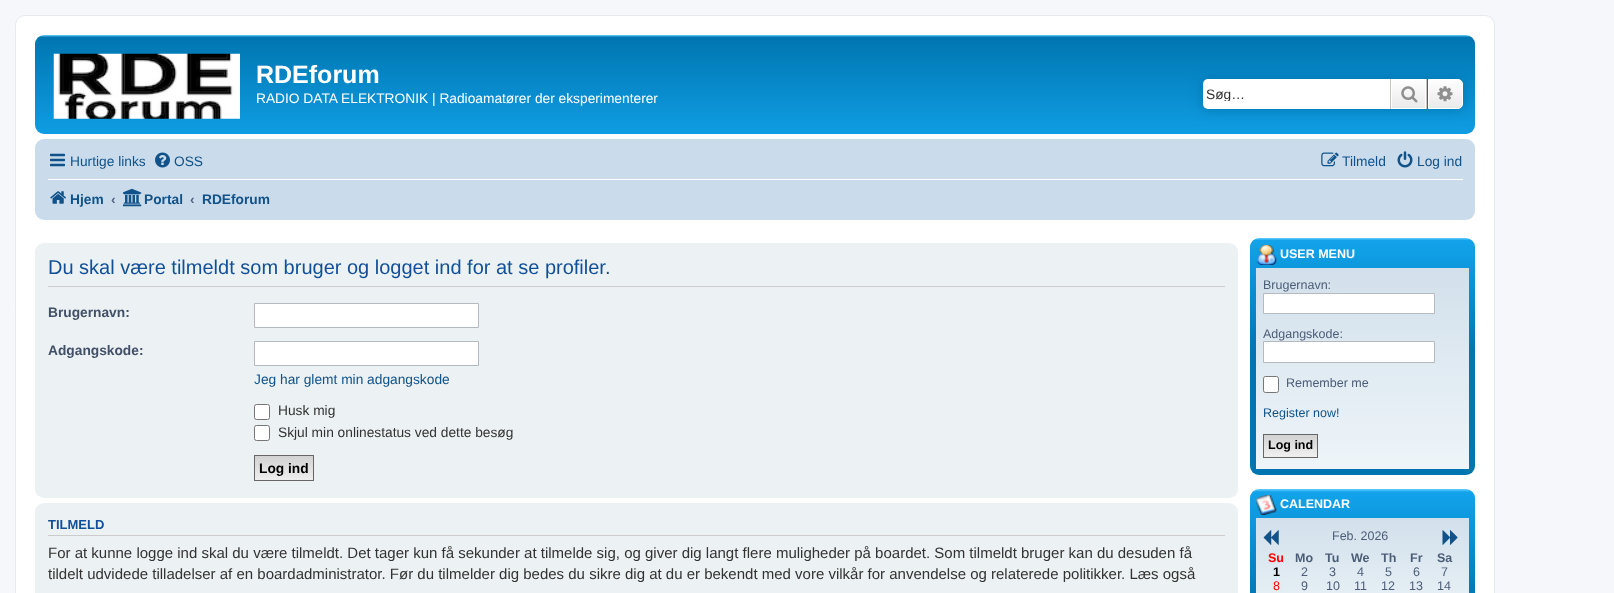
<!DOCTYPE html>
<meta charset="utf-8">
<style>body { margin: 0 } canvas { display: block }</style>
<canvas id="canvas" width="1614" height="593"></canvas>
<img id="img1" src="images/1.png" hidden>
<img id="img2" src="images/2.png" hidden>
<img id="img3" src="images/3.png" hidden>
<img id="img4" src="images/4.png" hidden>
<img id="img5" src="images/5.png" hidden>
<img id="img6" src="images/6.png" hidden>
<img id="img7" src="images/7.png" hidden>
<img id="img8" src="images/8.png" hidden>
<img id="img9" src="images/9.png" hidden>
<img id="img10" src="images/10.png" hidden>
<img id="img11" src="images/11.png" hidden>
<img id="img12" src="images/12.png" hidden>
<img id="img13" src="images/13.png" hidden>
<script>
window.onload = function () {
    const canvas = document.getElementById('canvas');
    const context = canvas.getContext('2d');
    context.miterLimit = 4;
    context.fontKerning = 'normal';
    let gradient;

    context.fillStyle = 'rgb(245, 247, 250)';
    context.fillRect(0, 0, 1614, 593);
    context.fillStyle = 'rgb(255, 255, 255)';
    context.beginPath();
    context.roundRect(15.5, 15.5, 1479, 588, 9.5);
    context.fill();
    context.strokeStyle = 'rgb(230, 233, 237)';
    context.stroke();
    gradient = context.createLinearGradient(755, 35, 755, 150);
    gradient.addColorStop(0, 'rgb(106, 206, 255)');
    gradient.addColorStop(0.02, 'rgb(0, 118, 177)');
    gradient.addColorStop(1, 'rgb(18, 163, 235)');
    context.fillStyle = gradient;
    context.beginPath();
    context.roundRect(35, 35, 1440, 99, 9);
    context.fill();
    context.drawImage(document.getElementById('img1'), 53, 53, 187, 66);
    context.fillStyle = 'rgb(0, 117, 176)';
    context.filter = 'blur(6px)';
    context.beginPath();
    context.roundRect(1203, 79, 260, 30, 5);
    context.fill();
    context.filter = 'none';
    context.fillStyle = 'rgb(255, 255, 255)';
    context.beginPath();
    context.roundRect(1203, 79, 187, 30, [5, 0, 0, 5]);
    context.fill();
    gradient = context.createLinearGradient(1409, 79, 1409, 109);
    gradient.addColorStop(0, 'rgb(255, 255, 255)');
    gradient.addColorStop(1, 'rgb(233, 233, 233)');
    context.fillStyle = gradient;
    context.fillRect(1392, 80, 33, 28);
    context.strokeStyle = 'rgb(255, 255, 255)';
    context.strokeRect(1391.5, 79.5, 34, 29);
    context.fillStyle = 'rgb(199, 195, 191)';
    context.fillRect(1426, 79, 1, 30);
    context.fillRect(1390, 79, 1, 30);
    context.drawImage(document.getElementById('img2'), 1401, 86, 17, 17);
    gradient = context.createLinearGradient(1445, 79, 1445, 109);
    gradient.addColorStop(0, 'rgb(255, 255, 255)');
    gradient.addColorStop(1, 'rgb(233, 233, 233)');
    context.fillStyle = gradient;
    context.beginPath();
    context.roundRect(1428.5, 79.5, 34, 29, [0, 4.5, 4.5, 0]);
    context.fill();
    context.stroke();
    context.drawImage(document.getElementById('img3'), 1437, 86, 16, 16);
    context.fillStyle = 'rgb(202, 220, 235)';
    context.beginPath();
    context.roundRect(35, 139, 1440, 81, 9);
    context.fill();
    context.drawImage(document.getElementById('img4'), 50, 153, 15, 14);
    context.drawImage(document.getElementById('img5'), 155, 152, 15, 16);
    context.drawImage(document.getElementById('img6'), 1321, 152, 18, 15);
    context.drawImage(document.getElementById('img7'), 1397, 151, 16, 17);
    context.fillStyle = 'rgb(255, 255, 255)';
    context.fillRect(48, 179, 1415, 1);
    context.drawImage(document.getElementById('img8'), 50, 191, 16, 13);
    context.drawImage(document.getElementById('img9'), 123, 188, 19, 19);
    context.fillStyle = 'rgb(236, 241, 243)';
    context.beginPath();
    context.roundRect(35, 243, 1203, 255, 9);
    context.fill();
    context.fillStyle = 'rgb(204, 204, 204)';
    context.fillRect(48, 286, 1177, 1);
    context.fillStyle = 'rgb(255, 255, 255)';
    context.beginPath();
    context.rect(254.5, 303.5, 224, 24);
    context.fill();
    context.strokeStyle = 'rgb(180, 186, 192)';
    context.stroke();
    context.beginPath();
    context.rect(254.5, 341.5, 224, 24);
    context.fill();
    context.stroke();
    context.beginPath();
    context.roundRect(254.5, 404.5, 15, 15, 2);
    context.fill();
    context.strokeStyle = 'rgb(118, 118, 118)';
    context.stroke();
    context.beginPath();
    context.roundRect(254.5, 425.5, 15, 15, 2);
    context.fill();
    context.stroke();
    gradient = context.createLinearGradient(284, 456, 284, 480);
    gradient.addColorStop(0, 'rgb(210, 210, 210)');
    gradient.addColorStop(1, 'rgb(239, 239, 239)');
    context.fillStyle = gradient;
    context.fillRect(255, 456, 58, 24);
    context.strokeStyle = 'rgb(102, 102, 102)';
    context.strokeRect(254.5, 455.5, 59, 25);
    context.fillStyle = 'rgb(236, 241, 243)';
    context.beginPath();
    context.roundRect(35, 503, 1203, 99, 9);
    context.fill();
    context.fillStyle = 'rgb(204, 204, 204)';
    context.fillRect(48, 535, 1177, 1);
    gradient = context.createLinearGradient(1363, 238, 1363, 475);
    gradient.addColorStop(0, 'rgb(106, 206, 255)');
    gradient.addColorStop(0.01, 'rgb(18, 163, 235)');
    gradient.addColorStop(0.48, 'rgb(0, 118, 177)');
    gradient.addColorStop(1, 'rgb(0, 118, 177)');
    context.fillStyle = gradient;
    context.beginPath();
    context.roundRect(1250, 238, 225, 237, 9);
    context.fill();
    context.drawImage(document.getElementById('img10'), 1257, 245, 20, 20);
    gradient = context.createLinearGradient(1363, 268, 1363, 469);
    gradient.addColorStop(0, 'rgb(210, 224, 235)');
    gradient.addColorStop(1, 'rgb(238, 245, 249)');
    context.fillStyle = gradient;
    context.fillRect(1256, 268, 213, 201);
    context.fillStyle = 'rgb(255, 255, 255)';
    context.beginPath();
    context.rect(1263.5, 293.5, 171, 20);
    context.fill();
    context.strokeStyle = 'rgb(180, 186, 192)';
    context.stroke();
    context.beginPath();
    context.rect(1263.5, 341.5, 171, 21);
    context.fill();
    context.stroke();
    context.beginPath();
    context.roundRect(1263.5, 376.5, 15, 16, 2);
    context.fill();
    context.strokeStyle = 'rgb(118, 118, 118)';
    context.stroke();
    context.fillStyle = 'rgb(239, 239, 239)';
    context.fillRect(1264, 456, 53, 1);
    gradient = context.createLinearGradient(1290, 435, 1290, 456);
    gradient.addColorStop(0, 'rgb(210, 210, 210)');
    gradient.addColorStop(1, 'rgb(239, 239, 239)');
    context.fillStyle = gradient;
    context.fillRect(1264, 435, 53, 21);
    context.strokeStyle = 'rgb(102, 102, 102)';
    context.strokeRect(1263.5, 434.5, 54, 23);
    gradient = context.createLinearGradient(1363, 489, 1363, 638);
    gradient.addColorStop(0, 'rgb(106, 206, 255)');
    gradient.addColorStop(0.02, 'rgb(18, 163, 235)');
    gradient.addColorStop(0.77, 'rgb(0, 118, 177)');
    gradient.addColorStop(1, 'rgb(0, 118, 177)');
    context.fillStyle = gradient;
    context.beginPath();
    context.roundRect(1250, 489, 225, 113, 9);
    context.fill();
    context.drawImage(document.getElementById('img11'), 1256, 495, 21, 20);
    gradient = context.createLinearGradient(1363, 518, 1363, 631);
    gradient.addColorStop(0, 'rgb(210, 224, 235)');
    gradient.addColorStop(1, 'rgb(238, 245, 249)');
    context.fillStyle = gradient;
    context.fillRect(1256, 518, 213, 75);
    context.drawImage(document.getElementById('img12'), 1263, 530, 16, 15);
    context.drawImage(document.getElementById('img13'), 1442, 530, 16, 15);
    context.font = 'bold 25px Liberation Sans';
    context.fillStyle = 'rgb(255, 255, 255)';
    context.fillText('RDEforum', 256, 83);
    context.font = '13.75px Liberation Sans';
    context.fillText('RADIO DATA ELEKTRONIK | Radioamatører der eksperimenterer', 256, 103);
    context.save();
    context.beginPath();
    context.rect(1206, 86, 175, 15);
    context.clip();
    context.fillStyle = 'rgb(51, 51, 51)';
    context.fillText('Søg…', 1206, 99);
    context.restore();
    context.fillStyle = 'rgb(16, 82, 137)';
    context.fillText('Hurtige links', 70, 166);
    context.fillText('OSS', 174, 166);
    context.fillText('Tilmeld', 1342, 166);
    context.fillText('Log ind', 1417, 166);
    context.font = 'bold 13.75px Liberation Sans';
    context.fillText('Hjem', 70, 204);
    context.fillStyle = 'rgb(83, 100, 130)';
    context.fillText('‹', 111, 204);
    context.fillStyle = 'rgb(16, 82, 137)';
    context.fillText('Portal', 144, 204);
    context.fillStyle = 'rgb(83, 100, 130)';
    context.fillText('‹', 190, 204);
    context.fillStyle = 'rgb(16, 82, 137)';
    context.fillText('RDEforum', 202, 204);
    context.font = '20px Liberation Sans';
    context.fillStyle = 'rgb(17, 80, 152)';
    context.fillText('Du skal være tilmeldt som bruger og logget ind for at se profiler.', 48, 274);
    context.font = 'bold 13.75px Liberation Sans';
    context.fillStyle = 'rgb(66, 80, 103)';
    context.fillText('Brugernavn:', 48, 317);
    context.fillText('Adgangskode:', 48, 355);
    context.font = '13.75px Liberation Sans';
    context.fillStyle = 'rgb(16, 82, 137)';
    context.fillText('Jeg har glemt min adgangskode', 254, 384);
    context.fillStyle = 'rgb(51, 51, 51)';
    context.fillText('Husk mig', 278, 415);
    context.fillText('Skjul min onlinestatus ved dette besøg', 278, 437);
    context.font = 'bold 13.75px Liberation Sans';
    context.fillStyle = 'rgb(0, 0, 0)';
    context.fillText('Log ind', 259, 473);
    context.font = 'bold 13px Liberation Sans';
    context.fillStyle = 'rgb(17, 80, 152)';
    context.fillText('TILMELD', 48, 529);
    context.font = '15px Liberation Sans';
    context.fillStyle = 'rgb(51, 51, 51)';
    context.fillText('For at kunne logge ind skal du være tilmeldt. Det tager kun få sekunder at tilmelde sig, og giver dig langt flere muligheder på boardet. Som tilmeldt bruger kan du desuden få', 48, 558);
    context.fillText('tildelt udvidede tilladelser af en boardadministrator. Før du tilmelder dig bedes du sikre dig at du er bekendt med vore vilkår for anvendelse og relaterede politikker. Læs også', 48, 579);
    context.font = 'bold 12.5px Liberation Sans';
    context.fillStyle = 'rgb(255, 255, 255)';
    context.fillText('USER MENU', 1280, 258);
    context.font = '12.5px Liberation Sans';
    context.fillStyle = 'rgb(76, 93, 119)';
    context.fillText('Brugernavn:', 1263, 289);
    context.fillText('Adgangskode:', 1263, 338);
    context.fillText('Remember me', 1286, 387);
    context.fillStyle = 'rgb(16, 82, 137)';
    context.fillText('Register now!', 1263, 417);
    context.font = 'bold 12.5px Liberation Sans';
    context.fillStyle = 'rgb(0, 0, 0)';
    context.fillText('Log ind', 1268, 449);
    context.fillStyle = 'rgb(255, 255, 255)';
    context.fillText('CALENDAR', 1280, 508);
    context.font = '12.5px Liberation Sans';
    context.fillStyle = 'rgb(76, 93, 119)';
    context.fillText('Feb. 2026', 1332, 540);
    context.font = 'bold 12.5px Liberation Sans';
    context.fillStyle = 'rgb(255, 0, 0)';
    context.fillText('Su', 1268, 562);
    context.fillStyle = 'rgb(76, 93, 119)';
    context.fillText('Mo', 1295, 562);
    context.fillText('Tu', 1325, 562);
    context.fillText('We', 1351, 562);
    context.fillText('Th', 1381, 562);
    context.fillText('Fr', 1410, 562);
    context.fillText('Sa', 1437, 562);
    context.fillStyle = 'rgb(0, 0, 0)';
    context.fillText('1', 1273, 576);
    context.font = '12.5px Liberation Sans';
    context.fillStyle = 'rgb(76, 93, 119)';
    context.fillText('2', 1301, 576);
    context.fillText('3', 1329, 576);
    context.fillText('4', 1357, 576);
    context.fillText('5', 1385, 576);
    context.fillText('6', 1413, 576);
    context.fillText('7', 1441, 576);
    context.fillStyle = 'rgb(255, 0, 0)';
    context.fillText('8', 1273, 590);
    context.fillStyle = 'rgb(76, 93, 119)';
    context.fillText('9', 1301, 590);
    context.fillText('10', 1326, 590);
    context.fillText('11', 1354, 590);
    context.fillText('12', 1381, 590);
    context.fillText('13', 1409, 590);
    context.fillText('14', 1437, 590);
};
</script>
